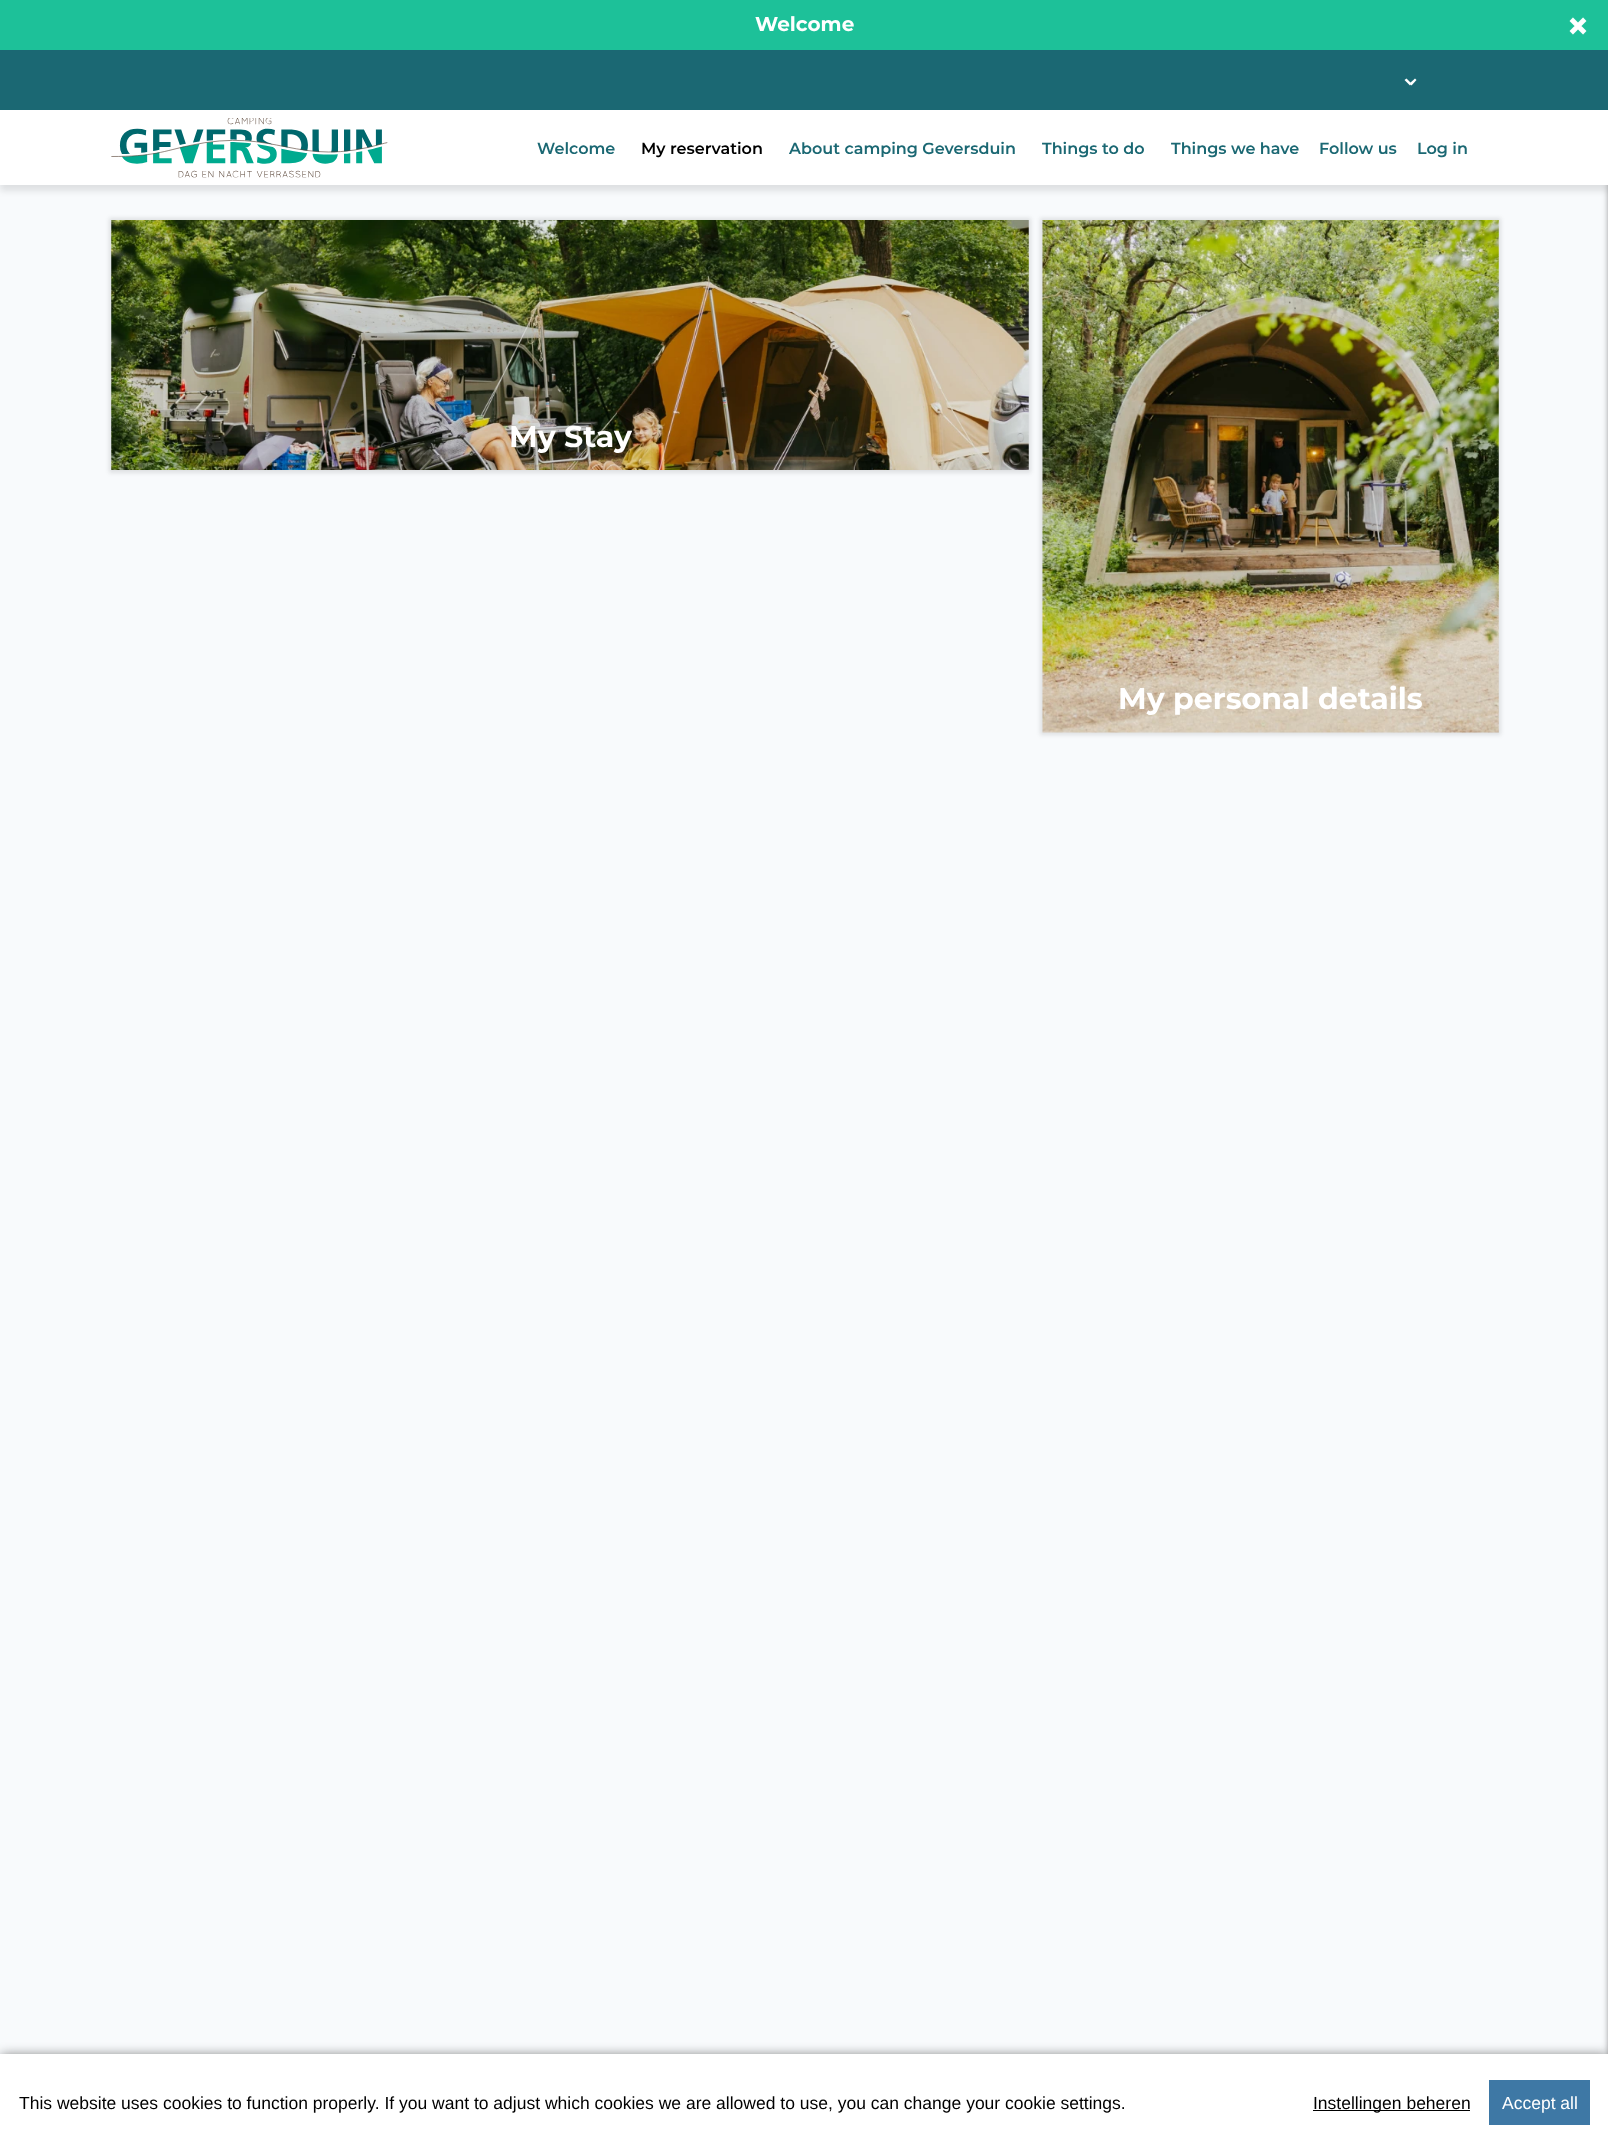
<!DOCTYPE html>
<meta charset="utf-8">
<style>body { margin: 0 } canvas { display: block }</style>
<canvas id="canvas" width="1608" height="2151"></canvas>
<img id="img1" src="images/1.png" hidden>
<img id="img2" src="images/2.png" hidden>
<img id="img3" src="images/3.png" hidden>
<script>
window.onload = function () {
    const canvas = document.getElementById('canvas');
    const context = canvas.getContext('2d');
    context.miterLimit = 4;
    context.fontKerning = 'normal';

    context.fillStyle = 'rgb(248, 250, 252)';
    context.fillRect(0, 0, 1608, 2151);
    context.fillStyle = 'rgba(0, 0, 0, 0.1)';
    context.filter = 'blur(3px)';
    context.beginPath();
    context.rect(0, 56, 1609, 135);
    context.fill();
    context.filter = 'none';
    context.fillStyle = 'rgba(0, 0, 0, 0.5)';
    context.filter = 'blur(3px)';
    context.beginPath();
    context.rect(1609, 0, 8, 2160);
    context.fill();
    context.filter = 'none';
    context.fillStyle = 'rgb(255, 255, 255)';
    context.fillRect(0, 110, 1608, 75);
    context.fillStyle = 'rgb(29, 193, 153)';
    context.fillRect(0, 0, 1608, 50);
    context.fillStyle = 'rgb(27, 104, 115)';
    context.fillRect(0, 50, 1608, 60);
    context.fillStyle = 'rgb(255, 255, 255)';
    context.beginPath();
    context.moveTo(1410, 85.5);
    context.lineTo(1404.5, 80);
    context.lineTo(1406.5, 78.5);
    context.lineTo(1411.5, 83.5);
    context.closePath();
    context.fill();
    context.beginPath();
    context.moveTo(1416.5, 80);
    context.lineTo(1411.5, 85.5);
    context.lineTo(1409.5, 83.5);
    context.lineTo(1415, 78.5);
    context.closePath();
    context.fill();
    context.drawImage(document.getElementById('img1'), 111, 118, 277, 60);
    context.fillStyle = 'rgba(0, 0, 0, 0.1)';
    context.filter = 'blur(2px)';
    context.beginPath();
    context.rect(109, 218, 922, 255);
    context.fill();
    context.filter = 'none';
    context.drawImage(document.getElementById('img2'), 111, 220, 918, 250);
    context.filter = 'blur(2px)';
    context.beginPath();
    context.rect(1040, 218, 461, 517);
    context.fill();
    context.filter = 'none';
    context.drawImage(document.getElementById('img3'), 1042, 220, 457, 513);
    context.fillStyle = 'rgba(0, 0, 0, 0.5)';
    context.filter = 'blur(6px)';
    context.beginPath();
    context.rect(1, 2055, 1607, 95);
    context.fill();
    context.filter = 'none';
    context.fillStyle = 'rgb(255, 255, 255)';
    context.fillRect(0, 2054, 1608, 97);
    context.fillStyle = 'rgb(0, 0, 0)';
    context.fillRect(1313, 2110, 157, 1);
    context.fillStyle = 'rgb(62, 120, 165)';
    context.fillRect(1489, 2080, 101, 45);
    context.font = 'bold 20px Montserrat';
    context.fillStyle = 'rgb(255, 255, 255)';
    context.fillText('Welcome', 755, 31);
    context.font = 'bold 40px Montserrat';
    context.fillText('×', 1566, 40);
    context.font = '600 16px Montserrat';
    context.fillStyle = 'rgb(27, 104, 115)';
    context.fillText('Welcome', 537, 154);
    context.fillStyle = 'rgb(0, 0, 0)';
    context.fillText('My reservation', 641, 154);
    context.fillStyle = 'rgb(27, 104, 115)';
    context.fillText('About camping Geversduin', 789, 154);
    context.fillText('Things to do', 1042, 154);
    context.fillText('Things we have', 1171, 154);
    context.fillText('Follow us', 1319, 154);
    context.fillText('Log in', 1417, 154);
    context.font = 'bold 30px Montserrat';
    context.fillStyle = 'rgb(255, 255, 255)';
    context.fillText('My Stay', 509, 447);
    context.fillText('My personal details', 1118, 709);
    context.font = '17.5px Liberation Sans';
    context.fillStyle = 'rgb(0, 0, 0)';
    context.fillText('This website uses cookies to function properly. If you want to adjust which cookies we are allowed to use, you can change your cookie settings.', 19, 2109);
    context.fillText('Instellingen beheren', 1313, 2109);
    context.fillStyle = 'rgb(255, 255, 255)';
    context.fillText('Accept all', 1502, 2109);
};
</script>
